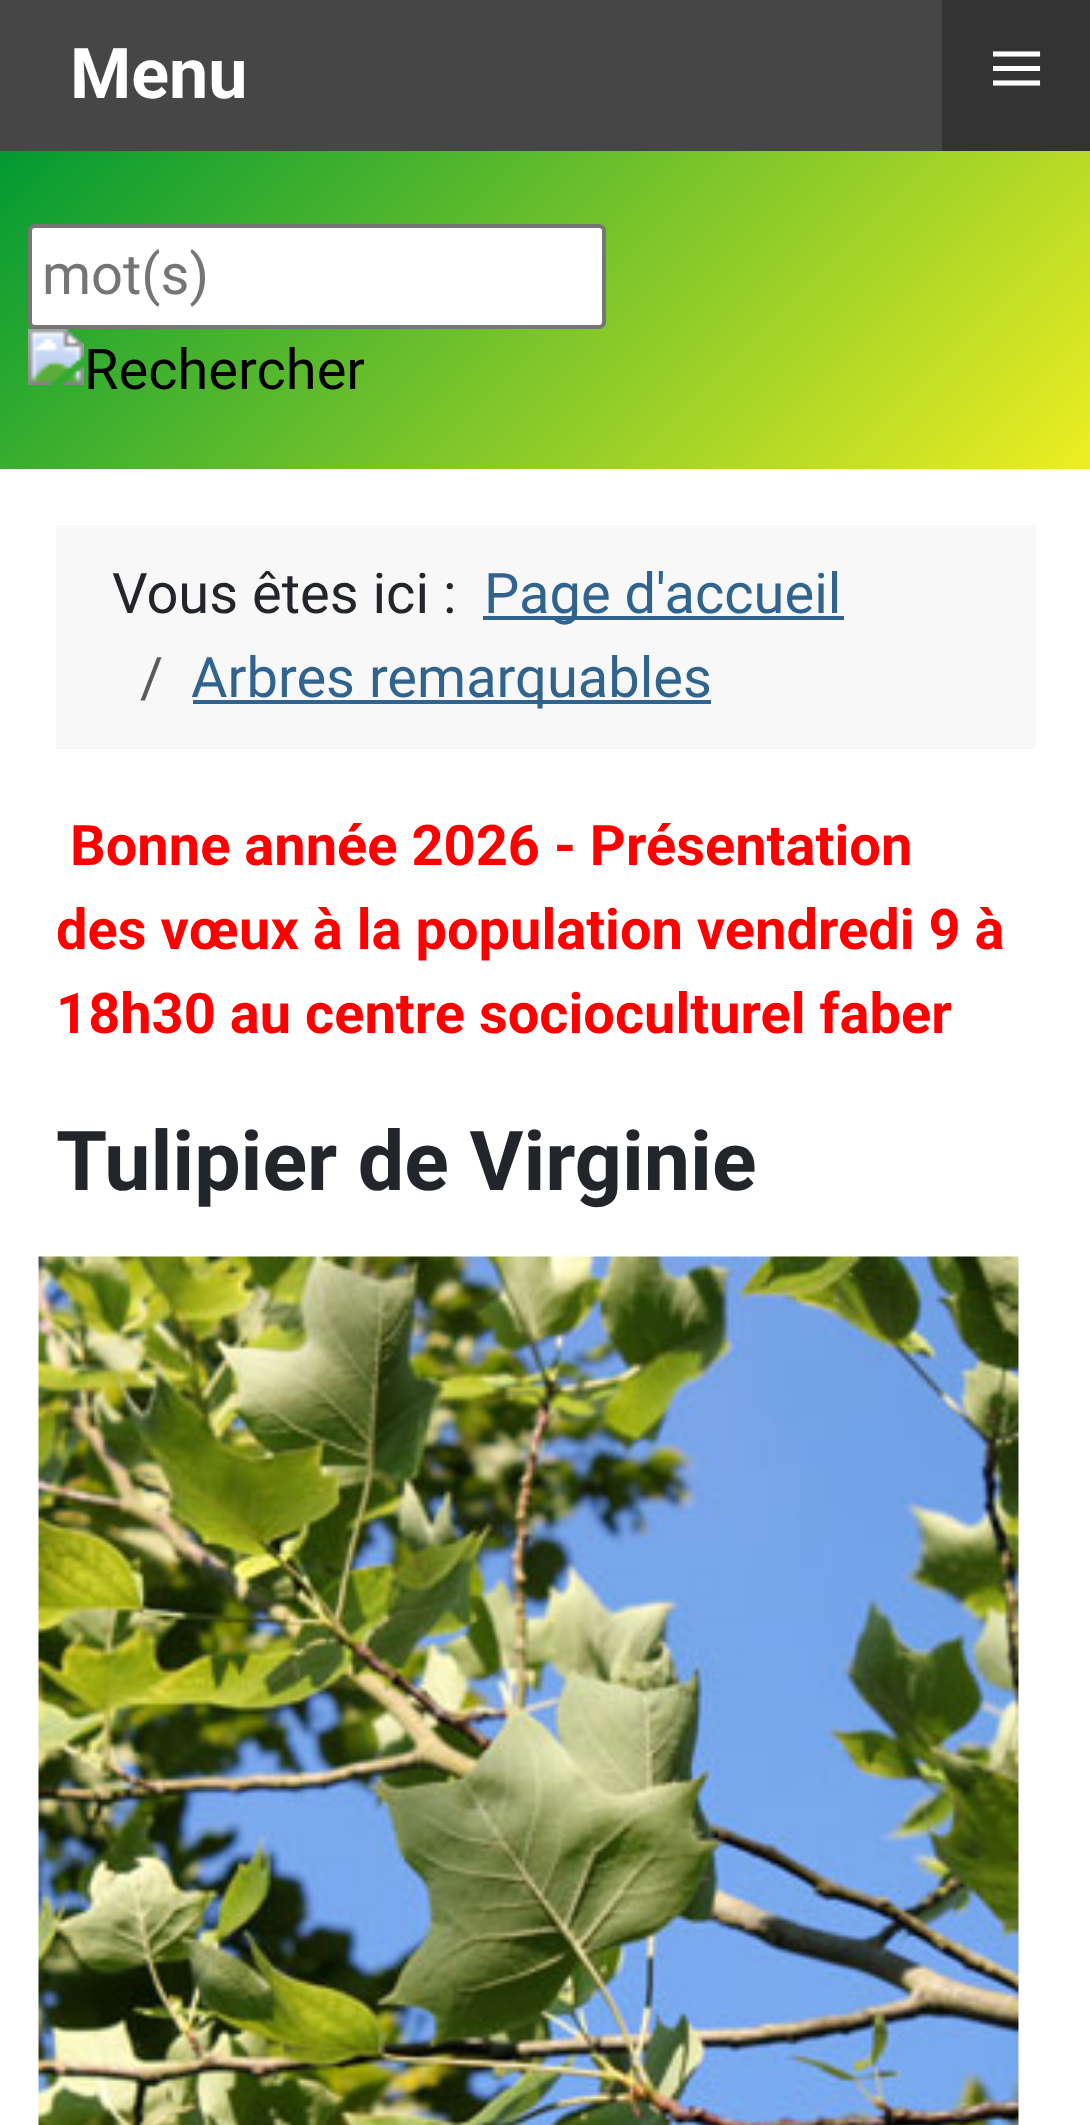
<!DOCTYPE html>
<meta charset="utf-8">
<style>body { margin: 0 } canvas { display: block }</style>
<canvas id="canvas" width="1090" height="2125"></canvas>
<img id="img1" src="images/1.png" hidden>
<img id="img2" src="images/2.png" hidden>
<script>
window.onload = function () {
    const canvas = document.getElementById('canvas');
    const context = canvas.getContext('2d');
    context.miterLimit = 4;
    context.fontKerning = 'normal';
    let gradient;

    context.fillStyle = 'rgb(255, 255, 255)';
    context.fillRect(0, 0, 1090, 2125);
    context.fillStyle = 'rgb(70, 70, 70)';
    context.fillRect(0, 0, 942, 151);
    context.fillStyle = 'rgb(51, 51, 51)';
    context.fillRect(942, 0, 148, 151);
    gradient = context.createLinearGradient(191, -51, 901, 660);
    gradient.addColorStop(0, 'rgb(0, 153, 51)');
    gradient.addColorStop(1, 'rgb(238, 238, 34)');
    context.fillStyle = gradient;
    context.fillRect(0, 151, 1090, 318);
    context.fillStyle = 'rgb(255, 255, 255)';
    context.beginPath();
    context.roundRect(30, 226, 574, 101, 5);
    context.fill();
    context.strokeStyle = 'rgb(118, 118, 118)';
    context.lineWidth = 4;
    context.stroke();
    context.drawImage(document.getElementById('img1'), 28, 329, 336, 61);
    context.fillStyle = 'rgb(248, 248, 248)';
    context.fillRect(56, 525, 980, 224);
    context.fillStyle = 'rgb(48, 99, 141)';
    context.fillRect(483, 616, 361, 4);
    context.fillRect(193, 700, 518, 4);
    context.drawImage(document.getElementById('img2'), 38, 1256, 981, 869);
    context.font = 'bold 70px Roboto';
    context.fillStyle = 'rgb(255, 255, 255)';
    context.fillText('Menu', 70, 98);
    context.font = '101px Liberation Serif';
    context.fillText('≡', 988, 102);
    context.font = '56px Roboto';
    context.fillStyle = 'rgb(117, 117, 117)';
    context.fillText('mot(s)', 42, 294);
    context.fillStyle = 'rgb(34, 38, 42)';
    context.fillText('Vous êtes ici :', 112, 613);
    context.fillStyle = 'rgb(48, 99, 141)';
    context.fillText('Page d\'accueil', 484, 613);
    context.fillStyle = 'rgb(88, 91, 94)';
    context.fillText('/', 140, 697);
    context.fillStyle = 'rgb(48, 99, 141)';
    context.fillText('Arbres remarquables', 191, 697);
    context.font = 'bold 56px Roboto';
    context.fillStyle = 'rgb(255, 0, 0)';
    context.fillText('Bonne année 2026 - Présentation', 70, 865);
    context.fillText('des vœux à la population vendredi 9 à', 56, 949);
    context.fillText('18h30 au centre socioculturel faber', 56, 1033);
    context.font = 'bold 82.6px Roboto';
    context.fillStyle = 'rgb(34, 38, 42)';
    context.fillText('Tulipier de Virginie', 56, 1190);
};
</script>
